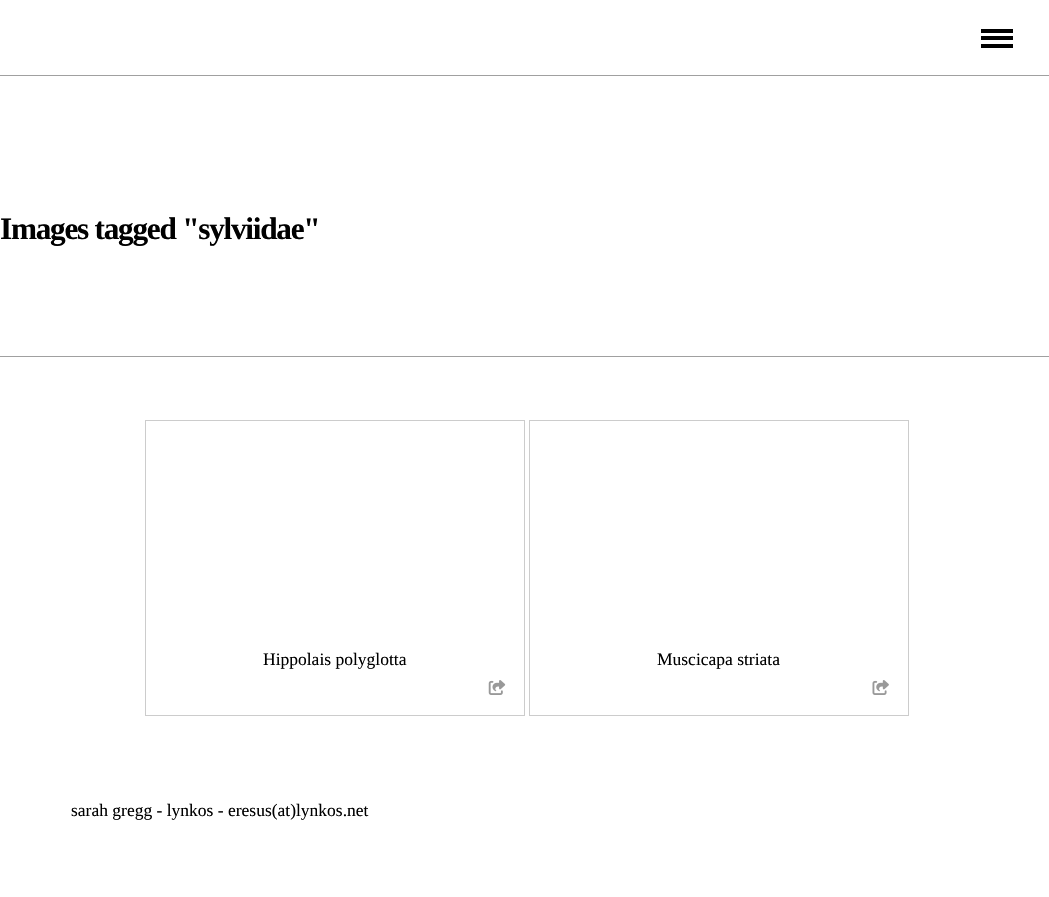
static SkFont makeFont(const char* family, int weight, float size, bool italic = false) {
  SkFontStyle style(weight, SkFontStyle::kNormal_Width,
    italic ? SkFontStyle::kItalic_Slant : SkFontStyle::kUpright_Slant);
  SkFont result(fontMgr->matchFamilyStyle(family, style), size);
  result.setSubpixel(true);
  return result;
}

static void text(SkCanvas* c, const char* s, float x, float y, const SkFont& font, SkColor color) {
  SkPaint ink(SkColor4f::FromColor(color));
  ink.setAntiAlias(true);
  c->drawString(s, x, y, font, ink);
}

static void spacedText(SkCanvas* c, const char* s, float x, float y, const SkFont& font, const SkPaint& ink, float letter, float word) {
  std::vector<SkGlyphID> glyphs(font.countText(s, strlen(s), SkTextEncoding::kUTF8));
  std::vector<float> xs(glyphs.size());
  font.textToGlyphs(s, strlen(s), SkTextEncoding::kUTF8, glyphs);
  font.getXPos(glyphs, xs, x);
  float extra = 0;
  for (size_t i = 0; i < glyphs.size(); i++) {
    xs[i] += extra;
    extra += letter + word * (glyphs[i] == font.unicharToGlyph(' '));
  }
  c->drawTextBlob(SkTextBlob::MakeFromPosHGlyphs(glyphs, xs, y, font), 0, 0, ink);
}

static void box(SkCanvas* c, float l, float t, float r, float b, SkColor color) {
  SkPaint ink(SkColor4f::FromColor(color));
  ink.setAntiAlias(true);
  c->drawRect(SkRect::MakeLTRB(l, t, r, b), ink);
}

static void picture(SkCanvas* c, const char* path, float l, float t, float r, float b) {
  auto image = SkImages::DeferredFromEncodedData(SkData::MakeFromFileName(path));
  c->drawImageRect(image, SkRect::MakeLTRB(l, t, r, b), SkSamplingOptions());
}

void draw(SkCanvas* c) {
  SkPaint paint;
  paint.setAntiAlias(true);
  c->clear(0xffffffff);
  box(c, 0, 75, 1049, 76, 0xffa0a0a0);
  box(c, 981, 29, 1013, 33, 0xff000000);
  box(c, 981, 36, 1013, 40, 0xff000000);
  box(c, 981, 44, 1013, 48, 0xff000000);
  box(c, 0, 356, 1049, 357, 0xffa0a0a0);
  SkFont face1 = makeFont("Liberation Serif", 700, 31.25f);
  paint.setColor(0xff000000);
  spacedText(c, "Images tagged \"sylviidae\"", 0, 239, face1, paint, -1.25f, 0);
  paint.setStyle(SkPaint::kStroke_Style);
  paint.setStrokeWidth(1);
  paint.setColor(0xffcccccc);
  c->drawRect(SkRect::MakeLTRB(145.5f, 420.5f, 524.5f, 715.5f), paint);
  SkFont face2 = makeFont("Liberation Serif", 400, 17.5f);
  text(c, "Hippolais polyglotta", 263, 665, face2, 0xff000000);
  picture(c, "img_01.png", 488, 680, 506, 695);
  c->drawRect(SkRect::MakeLTRB(529.5f, 420.5f, 908.5f, 715.5f), paint);
  text(c, "Muscicapa striata", 657, 665, face2, 0xff000000);
  picture(c, "img_02.png", 872, 680, 889, 695);
  text(c, "sarah gregg - lynkos - eresus(at)lynkos.net", 71, 816, face2, 0xff000000);
}
